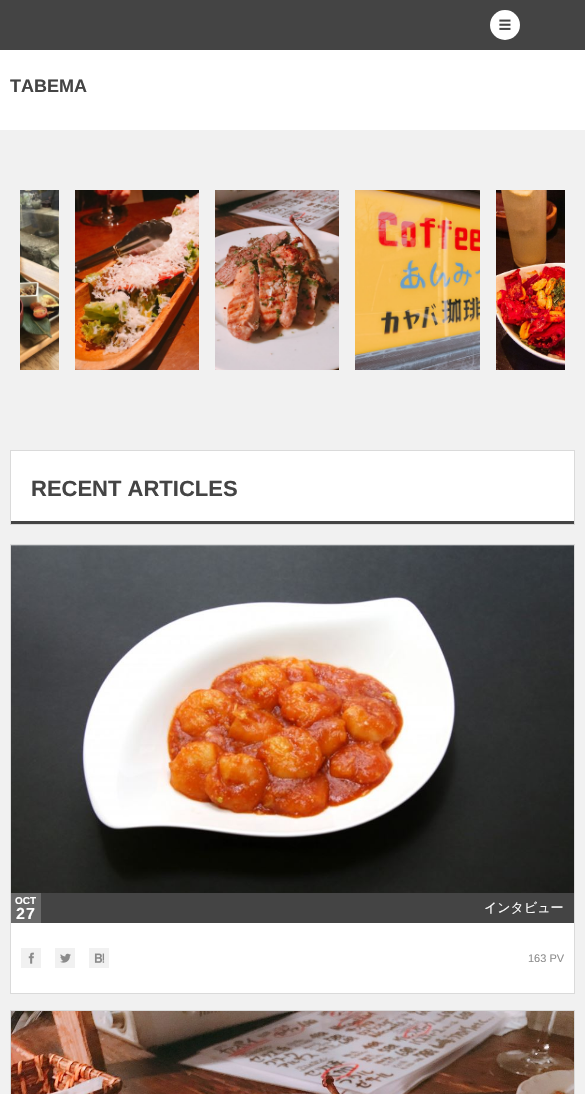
static SkFont makeFont(const char* family, int weight, float size, bool italic = false) {
  SkFontStyle style(weight, SkFontStyle::kNormal_Width,
    italic ? SkFontStyle::kItalic_Slant : SkFontStyle::kUpright_Slant);
  SkFont result(fontMgr->matchFamilyStyle(family, style), size);
  result.setSubpixel(true);
  return result;
}

static void text(SkCanvas* c, const char* s, float x, float y, const SkFont& font, SkColor color) {
  SkPaint ink(SkColor4f::FromColor(color));
  ink.setAntiAlias(true);
  c->drawString(s, x, y, font, ink);
}

static void spacedText(SkCanvas* c, const char* s, float x, float y, const SkFont& font, const SkPaint& ink, float letter, float word) {
  std::vector<SkGlyphID> glyphs(font.countText(s, strlen(s), SkTextEncoding::kUTF8));
  std::vector<float> xs(glyphs.size());
  font.textToGlyphs(s, strlen(s), SkTextEncoding::kUTF8, glyphs);
  font.getXPos(glyphs, xs, x);
  float extra = 0;
  for (size_t i = 0; i < glyphs.size(); i++) {
    xs[i] += extra;
    extra += letter + word * (glyphs[i] == font.unicharToGlyph(' '));
  }
  c->drawTextBlob(SkTextBlob::MakeFromPosHGlyphs(glyphs, xs, y, font), 0, 0, ink);
}

static void box(SkCanvas* c, float l, float t, float r, float b, SkColor color) {
  SkPaint ink(SkColor4f::FromColor(color));
  ink.setAntiAlias(true);
  c->drawRect(SkRect::MakeLTRB(l, t, r, b), ink);
}

static void picture(SkCanvas* c, const char* path, float l, float t, float r, float b) {
  auto image = SkImages::DeferredFromEncodedData(SkData::MakeFromFileName(path));
  c->drawImageRect(image, SkRect::MakeLTRB(l, t, r, b), SkSamplingOptions());
}

void draw(SkCanvas* c) {
  SkPaint paint;
  paint.setAntiAlias(true);
  c->clear(0xfff1f1f1);
  box(c, 0, 50, 585, 130, 0xffffffff);
  box(c, 0, 0, 585, 50, 0xff444444);
  paint.setColor(0xffffffff);
  c->drawCircle(505, 25, 15, paint);
  picture(c, "img_01.png", 499, 19, 511, 30);
  SkFont face1 = makeFont("Liberation Sans", 700, 18);
  text(c, "TABEMA", 10, 92, face1, 0xff444444);
  picture(c, "img_02.png", 20, 190, 59, 370);
  picture(c, "img_03.png", 75, 190, 199, 370);
  picture(c, "img_04.png", 215, 190, 339, 370);
  picture(c, "img_05.png", 355, 190, 480, 370);
  picture(c, "img_06.png", 496, 190, 565, 370);
  box(c, 11, 451, 574, 521, 0xffffffff);
  paint.setStyle(SkPaint::kStroke_Style);
  paint.setStrokeWidth(1);
  paint.setColor(0xffdadada);
  c->drawRect(SkRect::MakeLTRB(10.5f, 450.5f, 574.5f, 524.5f), paint);
  SkFont face2 = makeFont("Liberation Sans", 700, 22);
  text(c, "RECENT ARTICLES", 31, 496, face2, 0xff444444);
  box(c, 11, 521, 574, 524, 0xff444444);
  box(c, 11, 923, 574, 993, 0xffffffff);
  c->drawRect(SkRect::MakeLTRB(10.5f, 544.5f, 574.5f, 993.5f), paint);
  picture(c, "img_07.png", 11, 545, 574, 893);
  box(c, 11, 893, 41, 923, 0xff696969);
  SkFont face3 = makeFont("Liberation Sans", 700, 10);
  text(c, "OCT", 15, 904, face3, 0xffffffff);
  SkFont face4 = makeFont("Liberation Sans", 700, 16);
  paint.setStyle(SkPaint::kFill_Style);
  paint.setColor(0xffffffff);
  spacedText(c, "27", 16, 919, face4, paint, 1, 0);
  box(c, 41, 893, 574, 923, 0xff444444);
  SkFont face5 = makeFont("WenQuanYi Zen Hei", 500, 13);
  text(c, "インタビュー", 484, 912, face5, 0xffffffff);
  box(c, 21, 948, 41, 968, 0xfff1f1f1);
  picture(c, "img_08.png", 28, 952, 34, 964);
  box(c, 55, 948, 75, 968, 0xfff1f1f1);
  picture(c, "img_09.png", 60, 953, 71, 963);
  box(c, 89, 948, 109, 968, 0xfff1f1f1);
  picture(c, "img_10.png", 94, 953, 105, 963);
  SkFont face6 = makeFont("Liberation Sans", 400, 11);
  text(c, "163 PV", 528, 962, face6, 0xff8f8f8f);
  paint.setStyle(SkPaint::kStroke_Style);
  paint.setColor(0xffdadada);
  c->drawRect(SkRect::MakeLTRB(10.5f, 1010.5f, 574.5f, 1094.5f), paint);
  picture(c, "img_11.png", 11, 1011, 574, 1094);
}
